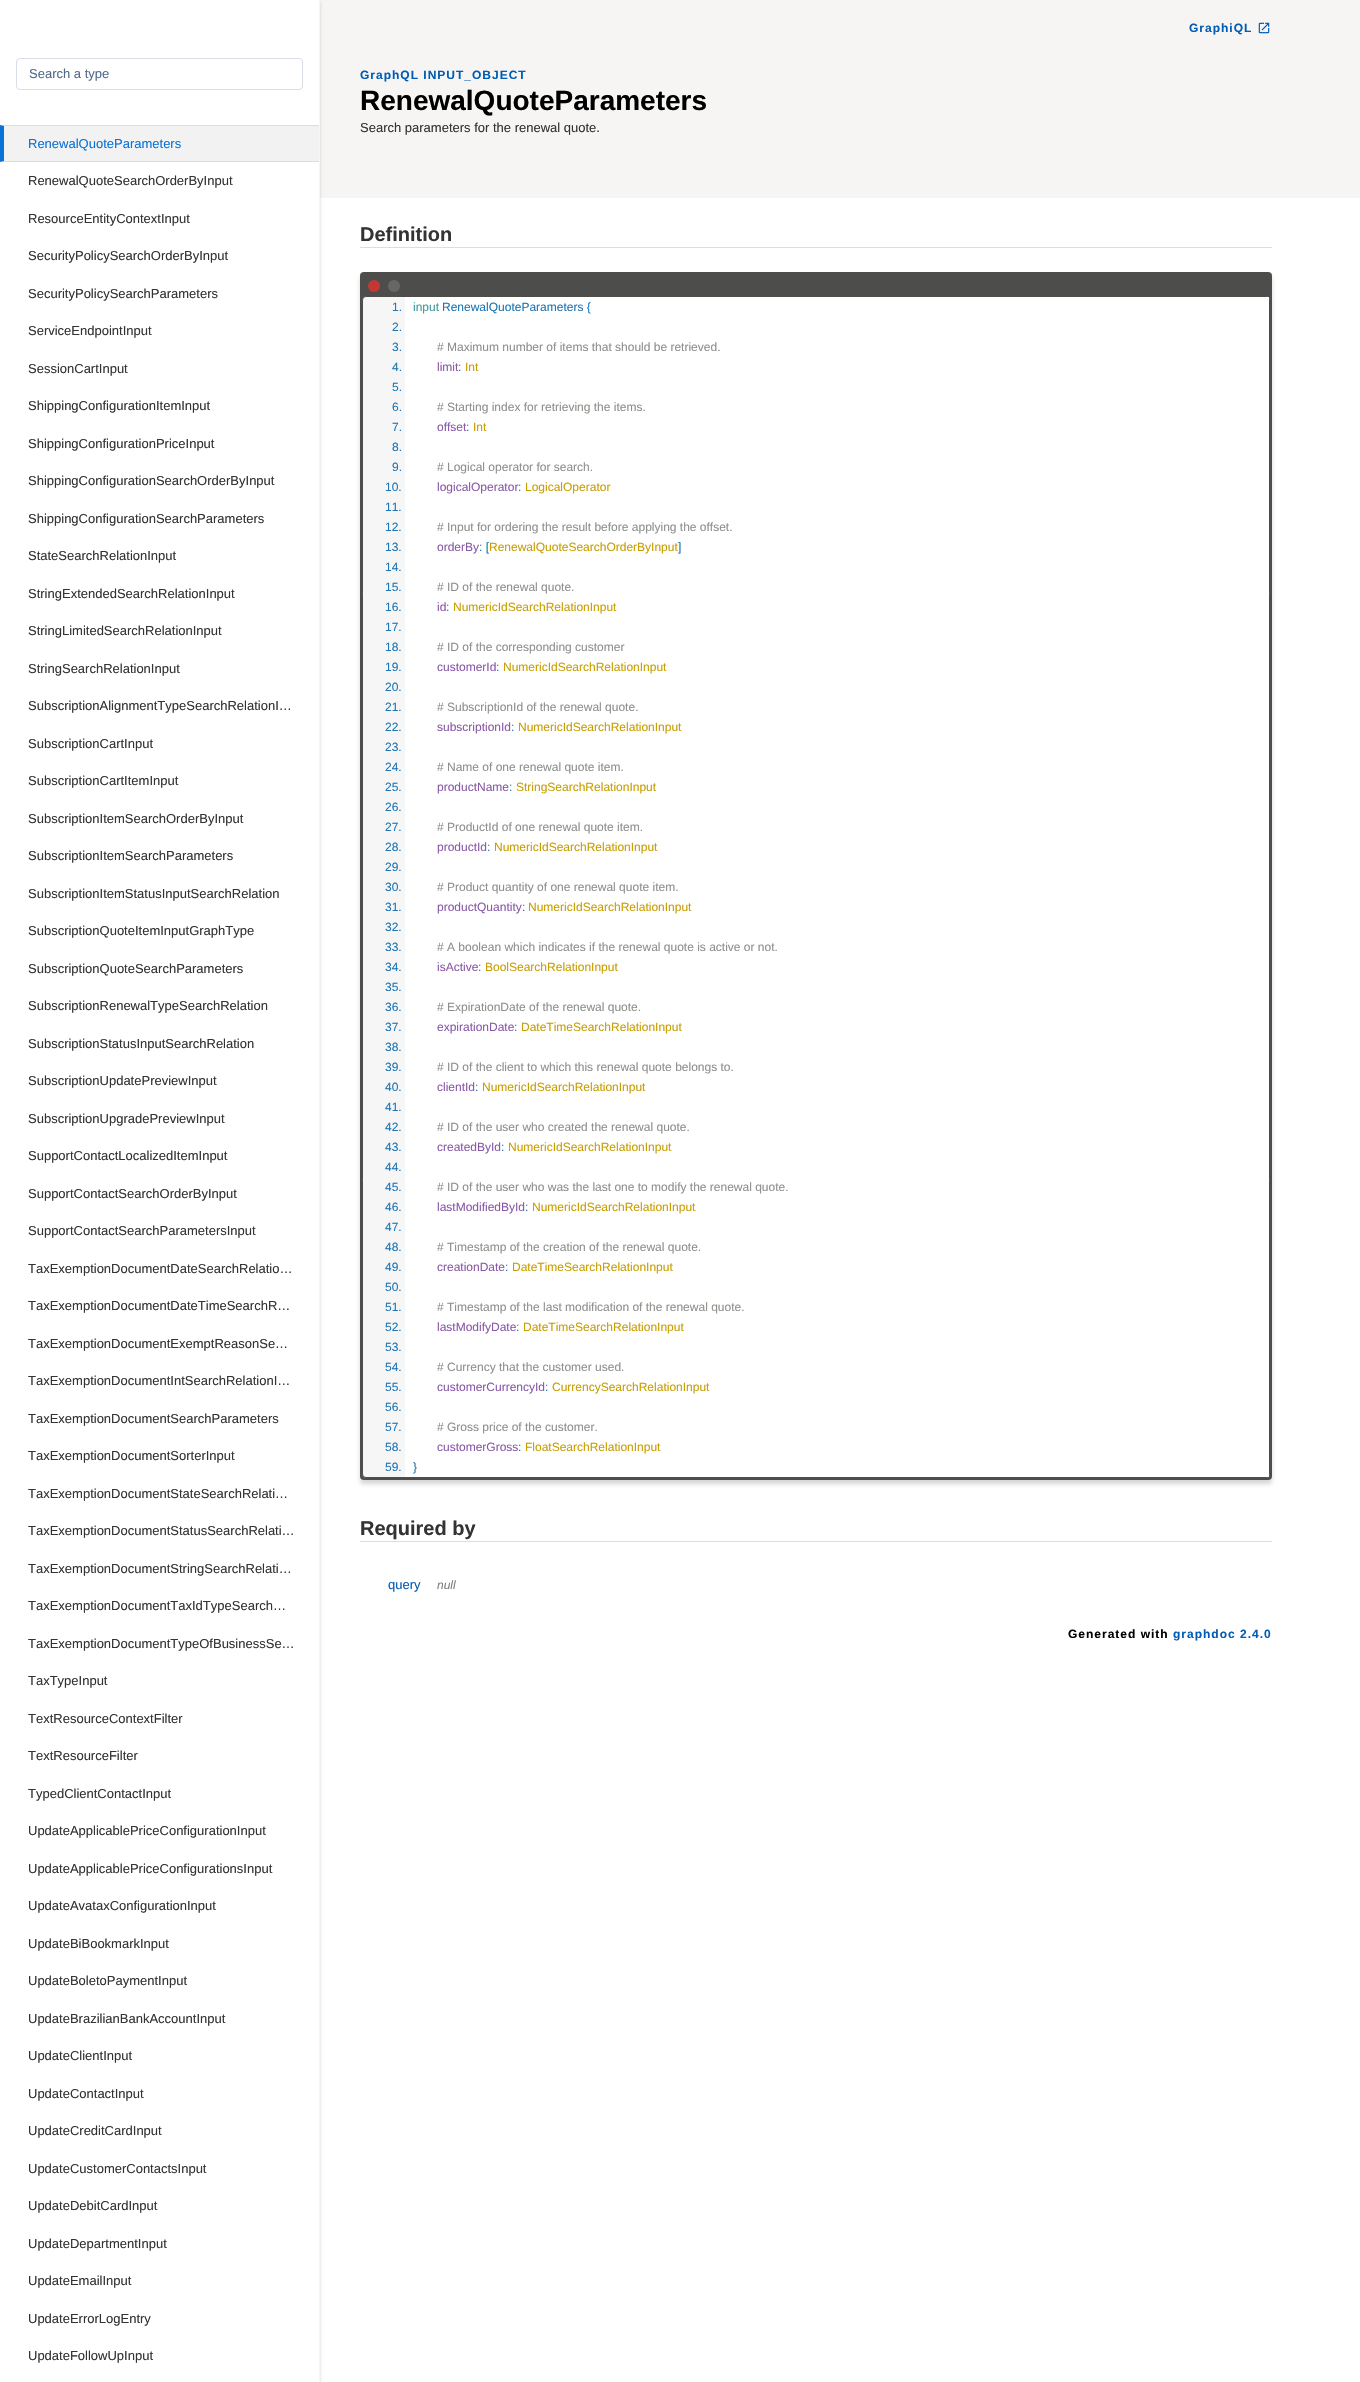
static SkFont makeFont(const char* family, int weight, float size, bool italic = false) {
  SkFontStyle style(weight, SkFontStyle::kNormal_Width,
    italic ? SkFontStyle::kItalic_Slant : SkFontStyle::kUpright_Slant);
  SkFont result(fontMgr->matchFamilyStyle(family, style), size);
  result.setSubpixel(true);
  return result;
}

static void text(SkCanvas* c, const char* s, float x, float y, const SkFont& font, SkColor color) {
  SkPaint ink(SkColor4f::FromColor(color));
  ink.setAntiAlias(true);
  c->drawString(s, x, y, font, ink);
}

static void spacedText(SkCanvas* c, const char* s, float x, float y, const SkFont& font, const SkPaint& ink, float letter, float word) {
  std::vector<SkGlyphID> glyphs(font.countText(s, strlen(s), SkTextEncoding::kUTF8));
  std::vector<float> xs(glyphs.size());
  font.textToGlyphs(s, strlen(s), SkTextEncoding::kUTF8, glyphs);
  font.getXPos(glyphs, xs, x);
  float extra = 0;
  for (size_t i = 0; i < glyphs.size(); i++) {
    xs[i] += extra;
    extra += letter + word * (glyphs[i] == font.unicharToGlyph(' '));
  }
  c->drawTextBlob(SkTextBlob::MakeFromPosHGlyphs(glyphs, xs, y, font), 0, 0, ink);
}

static void box(SkCanvas* c, float l, float t, float r, float b, SkColor color) {
  SkPaint ink(SkColor4f::FromColor(color));
  ink.setAntiAlias(true);
  c->drawRect(SkRect::MakeLTRB(l, t, r, b), ink);
}

static void roundBox(SkCanvas* c, float l, float t, float r, float b, float radius, SkColor color) {
  SkPaint ink(SkColor4f::FromColor(color));
  ink.setAntiAlias(true);
  c->drawRoundRect(SkRect::MakeLTRB(l, t, r, b), radius, radius, ink);
}

static void picture(SkCanvas* c, const char* path, float l, float t, float r, float b) {
  auto image = SkImages::DeferredFromEncodedData(SkData::MakeFromFileName(path));
  c->drawImageRect(image, SkRect::MakeLTRB(l, t, r, b), SkSamplingOptions());
}

void draw(SkCanvas* c) {
  SkPaint paint;
  paint.setAntiAlias(true);
  c->clear(0xffffffff);
  box(c, 320, 0, 1360, 198, 0xfff6f5f4);
  paint.setColor(0x29000000);
  paint.setMaskFilter(SkMaskFilter::MakeBlur(kNormal_SkBlurStyle, 1.5f));
  c->drawRect(SkRect::MakeLTRB(0, 2, 320, 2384), paint);
  paint.setMaskFilter(nullptr);
  box(c, 0, 0, 319, 2382, 0xffffffff);
  box(c, 319, 0, 320, 2382, 0xfff4f6f9);
  paint.setStyle(SkPaint::kStroke_Style);
  paint.setStrokeWidth(1);
  paint.setColor(0xffd8dde6);
  c->drawRoundRect(SkRect::MakeLTRB(16.5f, 58.5f, 302.5f, 89.5f), 3.5f, 3.5f, paint);
  SkFont face1 = makeFont("Liberation Sans", 400, 13);
  text(c, "Search a type", 29, 78, face1, 0xff54698d);
  box(c, 0, 125, 319, 162, 0xfff2f2f2);
  paint.setStyle(SkPaint::kFill_Style);
  c->drawPath(SkPathBuilder().moveTo(0, 125).lineTo(319, 125).lineTo(319, 126).lineTo(4, 126).close().detach(), paint);
  c->drawPath(SkPathBuilder().moveTo(319, 162).lineTo(0, 162).lineTo(4, 161).lineTo(319, 161).close().detach(), paint);
  paint.setColor(0xff0a73d7);
  c->drawPath(SkPathBuilder().moveTo(0, 162).lineTo(0, 125).lineTo(4, 126).lineTo(4, 161).close().detach(), paint);
  text(c, "RenewalQuoteParameters", 28, 148, face1, 0xff0a73d7);
  text(c, "RenewalQuoteSearchOrderByInput", 28, 185, face1, 0xff333333);
  text(c, "ResourceEntityContextInput", 28, 223, face1, 0xff333333);
  text(c, "SecurityPolicySearchOrderByInput", 28, 260, face1, 0xff333333);
  text(c, "SecurityPolicySearchParameters", 28, 298, face1, 0xff333333);
  text(c, "ServiceEndpointInput", 28, 335, face1, 0xff333333);
  text(c, "SessionCartInput", 28, 373, face1, 0xff333333);
  text(c, "ShippingConfigurationItemInput", 28, 410, face1, 0xff333333);
  text(c, "ShippingConfigurationPriceInput", 28, 448, face1, 0xff333333);
  text(c, "ShippingConfigurationSearchOrderByInput", 28, 485, face1, 0xff333333);
  text(c, "ShippingConfigurationSearchParameters", 28, 523, face1, 0xff333333);
  text(c, "StateSearchRelationInput", 28, 560, face1, 0xff333333);
  text(c, "StringExtendedSearchRelationInput", 28, 598, face1, 0xff333333);
  text(c, "StringLimitedSearchRelationInput", 28, 635, face1, 0xff333333);
  text(c, "StringSearchRelationInput", 28, 673, face1, 0xff333333);
  text(c, "SubscriptionAlignmentTypeSearchRelationI…", 28, 710, face1, 0xff333333);
  text(c, "SubscriptionCartInput", 28, 748, face1, 0xff333333);
  text(c, "SubscriptionCartItemInput", 28, 785, face1, 0xff333333);
  text(c, "SubscriptionItemSearchOrderByInput", 28, 823, face1, 0xff333333);
  text(c, "SubscriptionItemSearchParameters", 28, 860, face1, 0xff333333);
  text(c, "SubscriptionItemStatusInputSearchRelation", 28, 898, face1, 0xff333333);
  text(c, "SubscriptionQuoteItemInputGraphType", 28, 935, face1, 0xff333333);
  text(c, "SubscriptionQuoteSearchParameters", 28, 973, face1, 0xff333333);
  text(c, "SubscriptionRenewalTypeSearchRelation", 28, 1010, face1, 0xff333333);
  text(c, "SubscriptionStatusInputSearchRelation", 28, 1048, face1, 0xff333333);
  text(c, "SubscriptionUpdatePreviewInput", 28, 1085, face1, 0xff333333);
  text(c, "SubscriptionUpgradePreviewInput", 28, 1123, face1, 0xff333333);
  text(c, "SupportContactLocalizedItemInput", 28, 1160, face1, 0xff333333);
  text(c, "SupportContactSearchOrderByInput", 28, 1198, face1, 0xff333333);
  text(c, "SupportContactSearchParametersInput", 28, 1235, face1, 0xff333333);
  text(c, "TaxExemptionDocumentDateSearchRelatio…", 28, 1273, face1, 0xff333333);
  text(c, "TaxExemptionDocumentDateTimeSearchR…", 28, 1310, face1, 0xff333333);
  text(c, "TaxExemptionDocumentExemptReasonSe…", 28, 1348, face1, 0xff333333);
  text(c, "TaxExemptionDocumentIntSearchRelationI…", 28, 1385, face1, 0xff333333);
  text(c, "TaxExemptionDocumentSearchParameters", 28, 1423, face1, 0xff333333);
  text(c, "TaxExemptionDocumentSorterInput", 28, 1460, face1, 0xff333333);
  text(c, "TaxExemptionDocumentStateSearchRelati…", 28, 1498, face1, 0xff333333);
  text(c, "TaxExemptionDocumentStatusSearchRelati…", 28, 1535, face1, 0xff333333);
  text(c, "TaxExemptionDocumentStringSearchRelati…", 28, 1573, face1, 0xff333333);
  text(c, "TaxExemptionDocumentTaxIdTypeSearch…", 28, 1610, face1, 0xff333333);
  text(c, "TaxExemptionDocumentTypeOfBusinessSe…", 28, 1648, face1, 0xff333333);
  text(c, "TaxTypeInput", 28, 1685, face1, 0xff333333);
  text(c, "TextResourceContextFilter", 28, 1723, face1, 0xff333333);
  text(c, "TextResourceFilter", 28, 1760, face1, 0xff333333);
  text(c, "TypedClientContactInput", 28, 1798, face1, 0xff333333);
  text(c, "UpdateApplicablePriceConfigurationInput", 28, 1835, face1, 0xff333333);
  text(c, "UpdateApplicablePriceConfigurationsInput", 28, 1873, face1, 0xff333333);
  text(c, "UpdateAvataxConfigurationInput", 28, 1910, face1, 0xff333333);
  text(c, "UpdateBiBookmarkInput", 28, 1948, face1, 0xff333333);
  text(c, "UpdateBoletoPaymentInput", 28, 1985, face1, 0xff333333);
  text(c, "UpdateBrazilianBankAccountInput", 28, 2023, face1, 0xff333333);
  text(c, "UpdateClientInput", 28, 2060, face1, 0xff333333);
  text(c, "UpdateContactInput", 28, 2098, face1, 0xff333333);
  text(c, "UpdateCreditCardInput", 28, 2135, face1, 0xff333333);
  text(c, "UpdateCustomerContactsInput", 28, 2173, face1, 0xff333333);
  text(c, "UpdateDebitCardInput", 28, 2210, face1, 0xff333333);
  text(c, "UpdateDepartmentInput", 28, 2248, face1, 0xff333333);
  text(c, "UpdateEmailInput", 28, 2285, face1, 0xff333333);
  text(c, "UpdateErrorLogEntry", 28, 2323, face1, 0xff333333);
  text(c, "UpdateFollowUpInput", 28, 2360, face1, 0xff333333);
  SkFont face2 = makeFont("Liberation Sans", 700, 12);
  paint.setColor(0xff005cb4);
  spacedText(c, "GraphiQL", 1189, 32, face2, paint, 1, 0);
  picture(c, "img_01.png", 1258, 22, 1270, 34);
  spacedText(c, "GraphQL INPUT_OBJECT", 360, 79, face2, paint, 1, 0);
  SkFont face3 = makeFont("Liberation Sans", 700, 28);
  text(c, "RenewalQuoteParameters", 360, 110, face3, 0xff000000);
  text(c, "Search parameters for the renewal quote.", 360, 132, face1, 0xff333333);
  box(c, 360, 247, 1272, 248, 0xffd8dde6);
  SkFont face4 = makeFont("Liberation Sans", 700, 20);
  text(c, "Definition", 360, 241, face4, 0xff333333);
  paint.setColor(0x29000000);
  paint.setMaskFilter(SkMaskFilter::MakeBlur(kNormal_SkBlurStyle, 2));
  c->drawRoundRect(SkRect::MakeLTRB(360, 276, 1272, 1484), 4, 4, paint);
  paint.setMaskFilter(nullptr);
  roundBox(c, 360, 272, 1272, 1480, 4, 0xff4d4d4c);
  paint.setColor(0xffc23934);
  c->drawCircle(374, 286, 6, paint);
  paint.setColor(0xff676765);
  c->drawCircle(394, 286, 6, paint);
  paint.setColor(0xfff6f6f6);
  c->drawRoundRect(SkRect::MakeLTRB(362.5f, 296.5f, 1269.5f, 1477.5f), 3.5f, 3.5f, paint);
  paint.setStyle(SkPaint::kStroke_Style);
  paint.setColor(0xff4d4d4c);
  c->drawRoundRect(SkRect::MakeLTRB(362.5f, 296.5f, 1269.5f, 1477.5f), 3.5f, 3.5f, paint);
  box(c, 405, 297, 1269, 1477, 0xffffffff);
  SkFont face5 = makeFont("Liberation Sans", 400, 12);
  text(c, "1.", 392, 311, face5, 0xff1d75b3);
  text(c, "input", 413, 311, face5, 0xff3e999f);
  text(c, "RenewalQuoteParameters {", 442, 311, face5, 0xff1d75b3);
  text(c, "2.", 392, 331, face5, 0xff1d75b3);
  text(c, "3.", 392, 351, face5, 0xff1d75b3);
  text(c, "# Maximum number of items that should be retrieved.", 437, 351, face5, 0xff8e908c);
  text(c, "4.", 392, 371, face5, 0xff1d75b3);
  text(c, "limit", 437, 371, face5, 0xff8959a8);
  text(c, ":", 458, 371, face5, 0xff1d75b3);
  text(c, "Int", 465, 371, face5, 0xffc99e00);
  text(c, "5.", 392, 391, face5, 0xff1d75b3);
  text(c, "6.", 392, 411, face5, 0xff1d75b3);
  text(c, "# Starting index for retrieving the items.", 437, 411, face5, 0xff8e908c);
  text(c, "7.", 392, 431, face5, 0xff1d75b3);
  text(c, "offset", 437, 431, face5, 0xff8959a8);
  text(c, ":", 466, 431, face5, 0xff1d75b3);
  text(c, "Int", 473, 431, face5, 0xffc99e00);
  text(c, "8.", 392, 451, face5, 0xff1d75b3);
  text(c, "9.", 392, 471, face5, 0xff1d75b3);
  text(c, "# Logical operator for search.", 437, 471, face5, 0xff8e908c);
  text(c, "10.", 385, 491, face5, 0xff1d75b3);
  text(c, "logicalOperator", 437, 491, face5, 0xff8959a8);
  text(c, ":", 518, 491, face5, 0xff1d75b3);
  text(c, "LogicalOperator", 525, 491, face5, 0xffc99e00);
  text(c, "11.", 385, 511, face5, 0xff1d75b3);
  text(c, "12.", 385, 531, face5, 0xff1d75b3);
  text(c, "# Input for ordering the result before applying the offset.", 437, 531, face5, 0xff8e908c);
  text(c, "13.", 385, 551, face5, 0xff1d75b3);
  text(c, "orderBy", 437, 551, face5, 0xff8959a8);
  text(c, ": [", 479, 551, face5, 0xff1d75b3);
  text(c, "RenewalQuoteSearchOrderByInput", 489, 551, face5, 0xffc99e00);
  text(c, "]", 678, 551, face5, 0xff1d75b3);
  text(c, "14.", 385, 571, face5, 0xff1d75b3);
  text(c, "15.", 385, 591, face5, 0xff1d75b3);
  text(c, "# ID of the renewal quote.", 437, 591, face5, 0xff8e908c);
  text(c, "16.", 385, 611, face5, 0xff1d75b3);
  text(c, "id", 437, 611, face5, 0xff8959a8);
  text(c, ":", 446, 611, face5, 0xff1d75b3);
  text(c, "NumericIdSearchRelationInput", 453, 611, face5, 0xffc99e00);
  text(c, "17.", 385, 631, face5, 0xff1d75b3);
  text(c, "18.", 385, 651, face5, 0xff1d75b3);
  text(c, "# ID of the corresponding customer", 437, 651, face5, 0xff8e908c);
  text(c, "19.", 385, 671, face5, 0xff1d75b3);
  text(c, "customerId", 437, 671, face5, 0xff8959a8);
  text(c, ":", 496, 671, face5, 0xff1d75b3);
  text(c, "NumericIdSearchRelationInput", 503, 671, face5, 0xffc99e00);
  text(c, "20.", 385, 691, face5, 0xff1d75b3);
  text(c, "21.", 385, 711, face5, 0xff1d75b3);
  text(c, "# SubscriptionId of the renewal quote.", 437, 711, face5, 0xff8e908c);
  text(c, "22.", 385, 731, face5, 0xff1d75b3);
  text(c, "subscriptionId", 437, 731, face5, 0xff8959a8);
  text(c, ":", 511, 731, face5, 0xff1d75b3);
  text(c, "NumericIdSearchRelationInput", 518, 731, face5, 0xffc99e00);
  text(c, "23.", 385, 751, face5, 0xff1d75b3);
  text(c, "24.", 385, 771, face5, 0xff1d75b3);
  text(c, "# Name of one renewal quote item.", 437, 771, face5, 0xff8e908c);
  text(c, "25.", 385, 791, face5, 0xff1d75b3);
  text(c, "productName", 437, 791, face5, 0xff8959a8);
  text(c, ":", 509, 791, face5, 0xff1d75b3);
  text(c, "StringSearchRelationInput", 516, 791, face5, 0xffc99e00);
  text(c, "26.", 385, 811, face5, 0xff1d75b3);
  text(c, "27.", 385, 831, face5, 0xff1d75b3);
  text(c, "# ProductId of one renewal quote item.", 437, 831, face5, 0xff8e908c);
  text(c, "28.", 385, 851, face5, 0xff1d75b3);
  text(c, "productId", 437, 851, face5, 0xff8959a8);
  text(c, ":", 487, 851, face5, 0xff1d75b3);
  text(c, "NumericIdSearchRelationInput", 494, 851, face5, 0xffc99e00);
  text(c, "29.", 385, 871, face5, 0xff1d75b3);
  text(c, "30.", 385, 891, face5, 0xff1d75b3);
  text(c, "# Product quantity of one renewal quote item.", 437, 891, face5, 0xff8e908c);
  text(c, "31.", 385, 911, face5, 0xff1d75b3);
  text(c, "productQuantity", 437, 911, face5, 0xff8959a8);
  text(c, ":", 522, 911, face5, 0xff1d75b3);
  text(c, "NumericIdSearchRelationInput", 528, 911, face5, 0xffc99e00);
  text(c, "32.", 385, 931, face5, 0xff1d75b3);
  text(c, "33.", 385, 951, face5, 0xff1d75b3);
  text(c, "# A boolean which indicates if the renewal quote is active or not.", 437, 951, face5, 0xff8e908c);
  text(c, "34.", 385, 971, face5, 0xff1d75b3);
  text(c, "isActive", 437, 971, face5, 0xff8959a8);
  text(c, ":", 478, 971, face5, 0xff1d75b3);
  text(c, "BoolSearchRelationInput", 485, 971, face5, 0xffc99e00);
  text(c, "35.", 385, 991, face5, 0xff1d75b3);
  text(c, "36.", 385, 1011, face5, 0xff1d75b3);
  text(c, "# ExpirationDate of the renewal quote.", 437, 1011, face5, 0xff8e908c);
  text(c, "37.", 385, 1031, face5, 0xff1d75b3);
  text(c, "expirationDate", 437, 1031, face5, 0xff8959a8);
  text(c, ":", 514, 1031, face5, 0xff1d75b3);
  text(c, "DateTimeSearchRelationInput", 521, 1031, face5, 0xffc99e00);
  text(c, "38.", 385, 1051, face5, 0xff1d75b3);
  text(c, "39.", 385, 1071, face5, 0xff1d75b3);
  text(c, "# ID of the client to which this renewal quote belongs to.", 437, 1071, face5, 0xff8e908c);
  text(c, "40.", 385, 1091, face5, 0xff1d75b3);
  text(c, "clientId", 437, 1091, face5, 0xff8959a8);
  text(c, ":", 475, 1091, face5, 0xff1d75b3);
  text(c, "NumericIdSearchRelationInput", 482, 1091, face5, 0xffc99e00);
  text(c, "41.", 385, 1111, face5, 0xff1d75b3);
  text(c, "42.", 385, 1131, face5, 0xff1d75b3);
  text(c, "# ID of the user who created the renewal quote.", 437, 1131, face5, 0xff8e908c);
  text(c, "43.", 385, 1151, face5, 0xff1d75b3);
  text(c, "createdById", 437, 1151, face5, 0xff8959a8);
  text(c, ":", 501, 1151, face5, 0xff1d75b3);
  text(c, "NumericIdSearchRelationInput", 508, 1151, face5, 0xffc99e00);
  text(c, "44.", 385, 1171, face5, 0xff1d75b3);
  text(c, "45.", 385, 1191, face5, 0xff1d75b3);
  text(c, "# ID of the user who was the last one to modify the renewal quote.", 437, 1191, face5, 0xff8e908c);
  text(c, "46.", 385, 1211, face5, 0xff1d75b3);
  text(c, "lastModifiedById", 437, 1211, face5, 0xff8959a8);
  text(c, ":", 525, 1211, face5, 0xff1d75b3);
  text(c, "NumericIdSearchRelationInput", 532, 1211, face5, 0xffc99e00);
  text(c, "47.", 385, 1231, face5, 0xff1d75b3);
  text(c, "48.", 385, 1251, face5, 0xff1d75b3);
  text(c, "# Timestamp of the creation of the renewal quote.", 437, 1251, face5, 0xff8e908c);
  text(c, "49.", 385, 1271, face5, 0xff1d75b3);
  text(c, "creationDate", 437, 1271, face5, 0xff8959a8);
  text(c, ":", 505, 1271, face5, 0xff1d75b3);
  text(c, "DateTimeSearchRelationInput", 512, 1271, face5, 0xffc99e00);
  text(c, "50.", 385, 1291, face5, 0xff1d75b3);
  text(c, "51.", 385, 1311, face5, 0xff1d75b3);
  text(c, "# Timestamp of the last modification of the renewal quote.", 437, 1311, face5, 0xff8e908c);
  text(c, "52.", 385, 1331, face5, 0xff1d75b3);
  text(c, "lastModifyDate", 437, 1331, face5, 0xff8959a8);
  text(c, ":", 516, 1331, face5, 0xff1d75b3);
  text(c, "DateTimeSearchRelationInput", 523, 1331, face5, 0xffc99e00);
  text(c, "53.", 385, 1351, face5, 0xff1d75b3);
  text(c, "54.", 385, 1371, face5, 0xff1d75b3);
  text(c, "# Currency that the customer used.", 437, 1371, face5, 0xff8e908c);
  text(c, "55.", 385, 1391, face5, 0xff1d75b3);
  text(c, "customerCurrencyId", 437, 1391, face5, 0xff8959a8);
  text(c, ":", 545, 1391, face5, 0xff1d75b3);
  text(c, "CurrencySearchRelationInput", 552, 1391, face5, 0xffc99e00);
  text(c, "56.", 385, 1411, face5, 0xff1d75b3);
  text(c, "57.", 385, 1431, face5, 0xff1d75b3);
  text(c, "# Gross price of the customer.", 437, 1431, face5, 0xff8e908c);
  text(c, "58.", 385, 1451, face5, 0xff1d75b3);
  text(c, "customerGross", 437, 1451, face5, 0xff8959a8);
  text(c, ":", 518, 1451, face5, 0xff1d75b3);
  text(c, "FloatSearchRelationInput", 525, 1451, face5, 0xffc99e00);
  text(c, "59.", 385, 1471, face5, 0xff1d75b3);
  text(c, "}", 413, 1471, face5, 0xff1d75b3);
  box(c, 360, 1541, 1272, 1542, 0xffd8dde6);
  text(c, "Required by", 360, 1535, face4, 0xff333333);
  text(c, "query", 388, 1589, face1, 0xff005cb4);
  SkFont face6 = makeFont("Liberation Sans", 400, 12, true);
  text(c, "null", 437, 1589, face6, 0xff808080);
  paint.setStyle(SkPaint::kFill_Style);
  paint.setColor(0xff000000);
  spacedText(c, "Generated with", 1068, 1638, face2, paint, 1, 0);
  paint.setColor(0xff005cb4);
  spacedText(c, "graphdoc 2.4.0", 1173, 1638, face2, paint, 1, 0);
}
